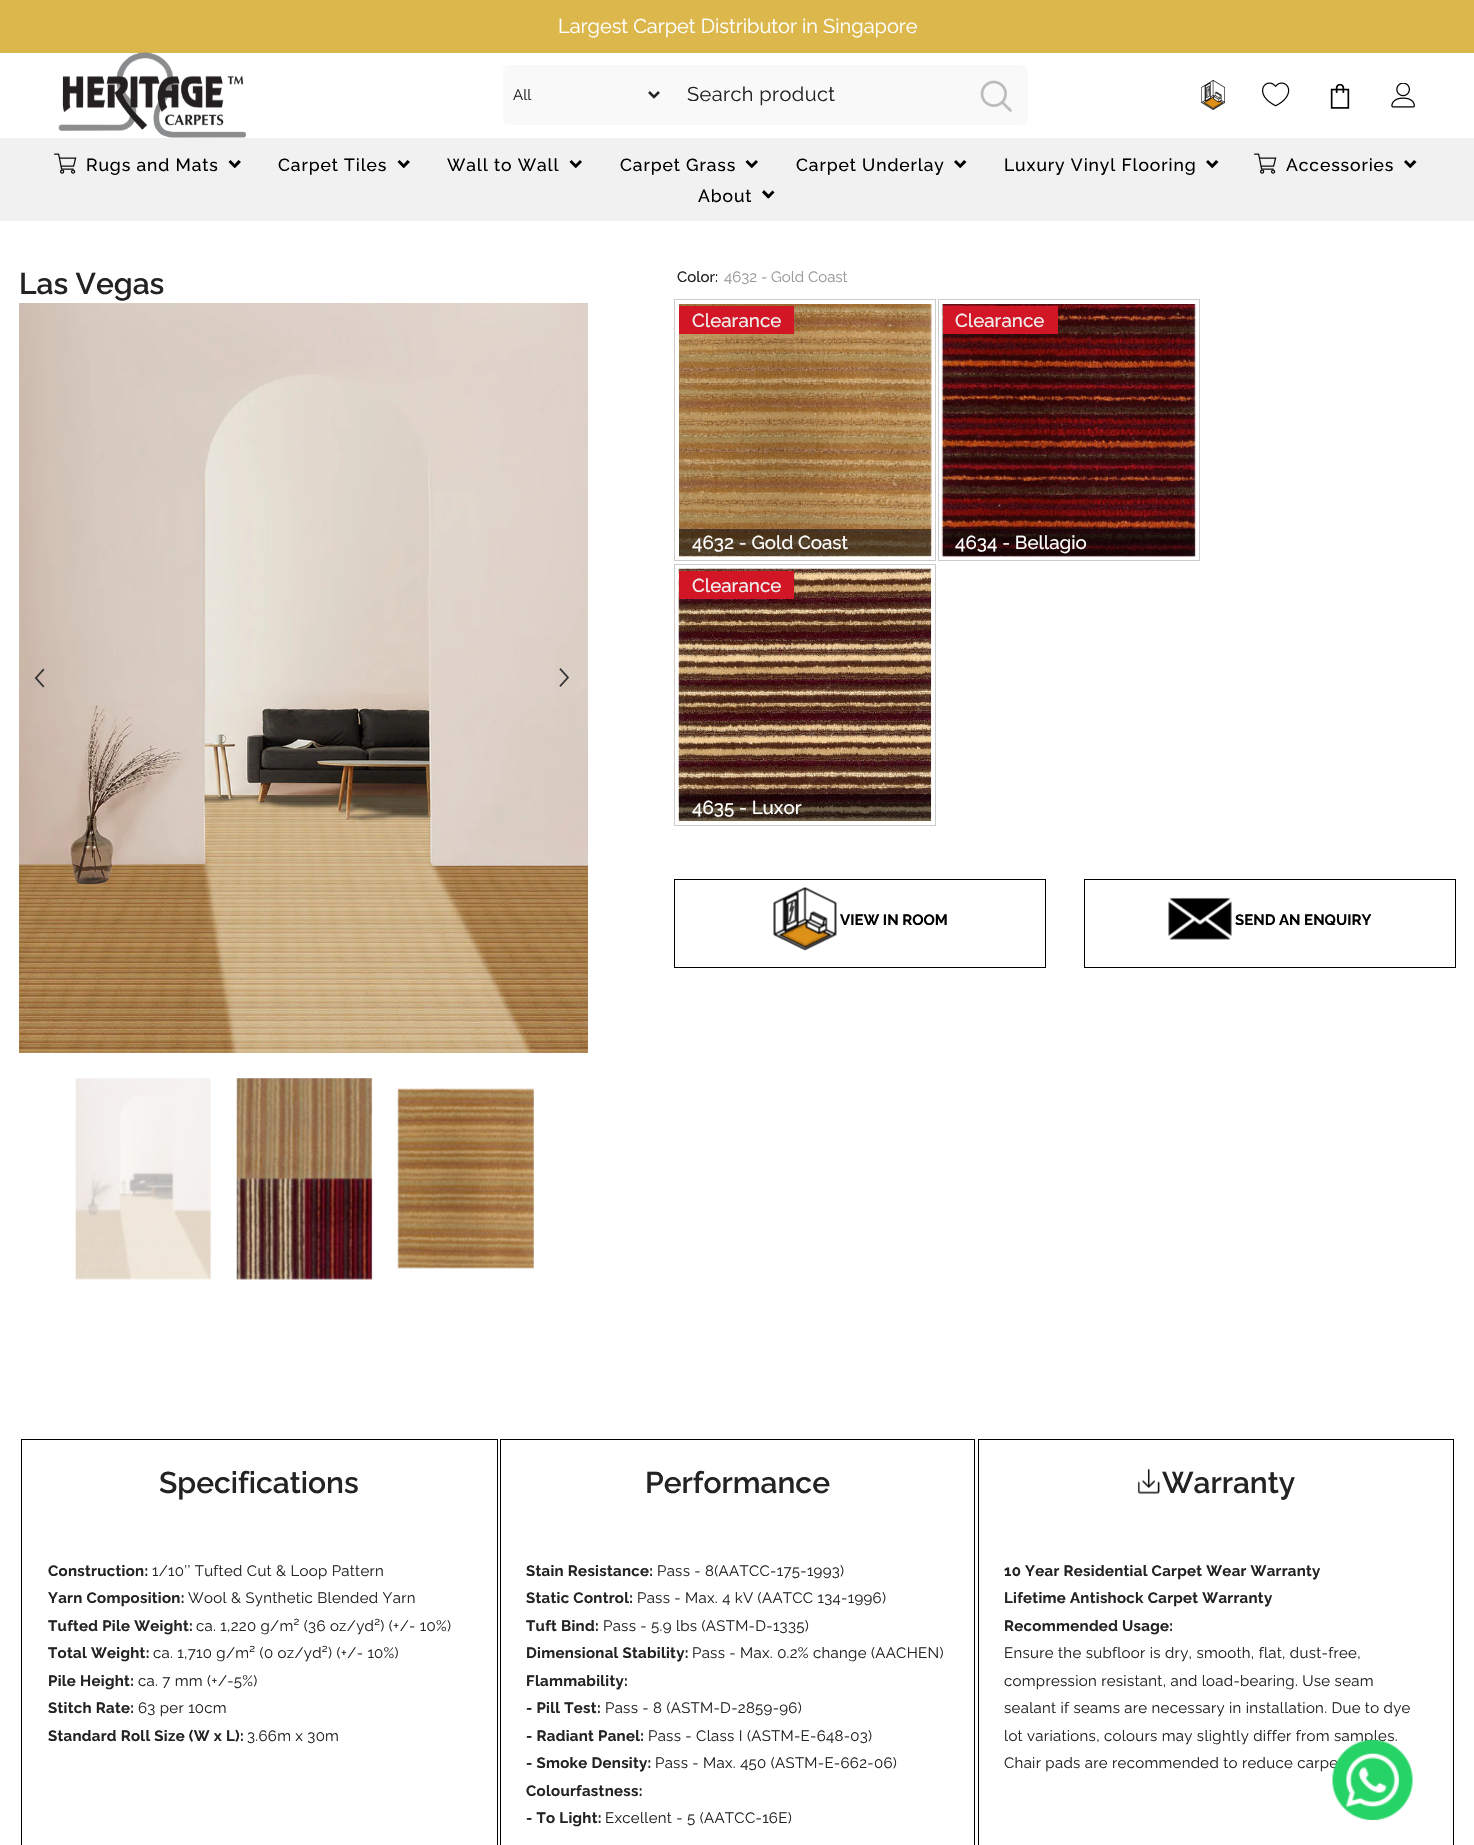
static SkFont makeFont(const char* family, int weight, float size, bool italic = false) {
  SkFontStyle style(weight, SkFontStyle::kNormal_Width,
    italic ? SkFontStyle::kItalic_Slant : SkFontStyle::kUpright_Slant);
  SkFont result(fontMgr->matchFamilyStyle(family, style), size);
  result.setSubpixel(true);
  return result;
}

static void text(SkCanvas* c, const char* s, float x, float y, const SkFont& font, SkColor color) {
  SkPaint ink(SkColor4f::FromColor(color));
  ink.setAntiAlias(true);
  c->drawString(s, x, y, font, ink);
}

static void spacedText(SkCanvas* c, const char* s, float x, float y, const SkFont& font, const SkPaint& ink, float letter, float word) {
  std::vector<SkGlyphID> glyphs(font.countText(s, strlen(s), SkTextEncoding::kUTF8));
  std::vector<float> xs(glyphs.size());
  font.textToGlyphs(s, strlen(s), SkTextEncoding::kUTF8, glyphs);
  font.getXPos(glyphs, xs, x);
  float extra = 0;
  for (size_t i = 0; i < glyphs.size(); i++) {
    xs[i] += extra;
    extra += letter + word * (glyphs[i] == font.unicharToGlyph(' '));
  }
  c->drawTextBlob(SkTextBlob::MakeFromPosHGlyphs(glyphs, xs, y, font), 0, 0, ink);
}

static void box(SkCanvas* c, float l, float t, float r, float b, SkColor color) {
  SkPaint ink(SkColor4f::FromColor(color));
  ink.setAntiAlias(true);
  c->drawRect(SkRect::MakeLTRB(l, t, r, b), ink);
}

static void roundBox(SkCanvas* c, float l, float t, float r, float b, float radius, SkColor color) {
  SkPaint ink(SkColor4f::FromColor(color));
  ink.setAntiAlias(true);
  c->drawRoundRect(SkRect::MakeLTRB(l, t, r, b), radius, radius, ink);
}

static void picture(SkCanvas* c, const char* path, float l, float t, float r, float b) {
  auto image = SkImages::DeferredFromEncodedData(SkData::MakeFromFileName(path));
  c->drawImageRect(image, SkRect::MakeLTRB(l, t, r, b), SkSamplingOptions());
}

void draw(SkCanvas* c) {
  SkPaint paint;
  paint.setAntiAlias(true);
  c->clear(0xffffffff);
  box(c, 0, 0, 1474, 53, 0xffdcb84c);
  SkFont face1 = makeFont("Raleway", 100, 20);
  text(c, "Largest Carpet Distributor in Singapore", 558, 33, face1, 0xffffffff);
  picture(c, "img_01.png", 58, 52, 247, 138);
  roundBox(c, 503, 65, 1028, 125, 6, 0xfff9f9f9);
  paint.setStyle(SkPaint::kStroke_Style);
  paint.setStrokeWidth(2.5f);
  paint.setColor(0xff232323);
  c->drawPath(SkPathBuilder().moveTo(649, 92).lineTo(654, 97).lineTo(659, 92).detach(), paint);
  SkFont face2 = makeFont("Raleway", 100, 15);
  text(c, "All", 513, 100, face2, 0xff232323);
  paint.setStyle(SkPaint::kFill_Style);
  spacedText(c, "Search product", 687, 101, face1, paint, 0.4f, 0);
  picture(c, "img_02.png", 980, 80, 1012, 112);
  picture(c, "img_03.png", 1201, 80, 1225, 110);
  picture(c, "img_04.png", 1262, 82, 1290, 107);
  picture(c, "img_05.png", 1330, 84, 1350, 109);
  picture(c, "img_06.png", 1391, 83, 1415, 108);
  box(c, 0, 138, 1474, 221, 0xfff1f1f1);
  picture(c, "img_07.png", 54, 153, 77, 174);
  SkFont face3 = makeFont("Raleway", 500, 17.5f);
  paint.setColor(0xff000000);
  spacedText(c, "Rugs and Mats", 86, 171, face3, paint, 0.9f, 0);
  c->drawPath(SkPathBuilder().moveTo(238.5f, 160).lineTo(241, 162).lineTo(235, 168).lineTo(233, 166).close().detach(), paint);
  c->drawPath(SkPathBuilder().moveTo(230.5f, 160).lineTo(236.5f, 166).lineTo(234.5f, 168).lineTo(228.5f, 162).close().detach(), paint);
  spacedText(c, "Carpet Tiles", 278, 171, face3, paint, 0.9f, 0);
  c->drawPath(SkPathBuilder().moveTo(407.5f, 160).lineTo(410, 162).lineTo(404, 168).lineTo(402, 166).close().detach(), paint);
  c->drawPath(SkPathBuilder().moveTo(399.5f, 160).lineTo(405.5f, 166).lineTo(403.5f, 168).lineTo(397.5f, 162).close().detach(), paint);
  spacedText(c, "Wall to Wall", 447, 171, face3, paint, 0.9f, 0);
  c->drawPath(SkPathBuilder().moveTo(580, 160).lineTo(582, 162).lineTo(576, 168).lineTo(574, 166).close().detach(), paint);
  c->drawPath(SkPathBuilder().moveTo(571.5f, 160).lineTo(577.5f, 166).lineTo(575.5f, 168).lineTo(569.5f, 162).close().detach(), paint);
  spacedText(c, "Carpet Grass", 620, 171, face3, paint, 0.9f, 0);
  c->drawPath(SkPathBuilder().moveTo(756, 160).lineTo(758, 162).lineTo(752, 168).lineTo(750, 166).close().detach(), paint);
  c->drawPath(SkPathBuilder().moveTo(747.5f, 160).lineTo(753.5f, 166).lineTo(751.5f, 168).lineTo(745.5f, 162).close().detach(), paint);
  spacedText(c, "Carpet Underlay", 796, 171, face3, paint, 0.9f, 0);
  c->drawPath(SkPathBuilder().moveTo(964, 160).lineTo(966.5f, 162).lineTo(960.5f, 168).lineTo(958.5f, 166).close().detach(), paint);
  c->drawPath(SkPathBuilder().moveTo(956, 160).lineTo(962, 166).lineTo(960, 168).lineTo(954, 162).close().detach(), paint);
  spacedText(c, "Luxury Vinyl Flooring", 1004, 171, face3, paint, 0.9f, 0);
  c->drawPath(SkPathBuilder().moveTo(1216, 160).lineTo(1218.5f, 162).lineTo(1212.5f, 168).lineTo(1210.5f, 166).close().detach(), paint);
  c->drawPath(SkPathBuilder().moveTo(1208, 160).lineTo(1214, 166).lineTo(1212, 168).lineTo(1206, 162).close().detach(), paint);
  picture(c, "img_07.png", 1254, 153, 1277, 174);
  spacedText(c, "Accessories", 1286, 171, face3, paint, 0.9f, 0);
  c->drawPath(SkPathBuilder().moveTo(1414, 160).lineTo(1416.5f, 162).lineTo(1410.5f, 168).lineTo(1408.5f, 166).close().detach(), paint);
  c->drawPath(SkPathBuilder().moveTo(1406, 160).lineTo(1412, 166).lineTo(1410, 168).lineTo(1404, 162).close().detach(), paint);
  spacedText(c, "About", 698, 202, face3, paint, 0.9f, 0);
  c->drawPath(SkPathBuilder().moveTo(772.5f, 190.5f).lineTo(774.5f, 192.5f).lineTo(768.5f, 198.5f).lineTo(766.5f, 196.5f).close().detach(), paint);
  c->drawPath(SkPathBuilder().moveTo(764, 190).lineTo(770.5f, 196.5f).lineTo(768, 198.5f).lineTo(762, 192.5f).close().detach(), paint);
  SkFont face4 = makeFont("Raleway", 600, 30);
  text(c, "Las Vegas", 19, 294, face4, 0xff232323);
  picture(c, "img_08.png", 19, 303, 588, 1053);
  picture(c, "img_09.png", 34, 668, 45, 688);
  picture(c, "img_10.png", 559, 668, 569, 687);
  picture(c, "img_11.png", 75, 1078, 211, 1280);
  picture(c, "img_12.png", 236, 1078, 373, 1280);
  picture(c, "img_13.png", 397, 1088, 534, 1269);
  SkFont face5 = makeFont("Raleway", 500, 15);
  text(c, "Color:", 677, 282, face5, 0xff232323);
  text(c, "4632 - Gold Coast", 724, 282, face2, 0xff969696);
  paint.setStyle(SkPaint::kStroke_Style);
  paint.setStrokeWidth(1);
  paint.setColor(0xffcbcbcb);
  c->drawRect(SkRect::MakeLTRB(674.5f, 299.5f, 935.5f, 560.5f), paint);
  picture(c, "img_14.png", 679, 304, 932, 557);
  box(c, 679, 306, 794, 334, 0xffd21625);
  SkFont face6 = makeFont("Raleway", 500, 18.75f);
  text(c, "Clearance", 692, 327, face6, 0xfff0f0f0);
  box(c, 679, 529, 931, 556, 0x87000000);
  text(c, "4632 - Gold Coast", 692, 549, face6, 0xffffffff);
  c->drawRect(SkRect::MakeLTRB(938.5f, 299.5f, 1199.5f, 560.5f), paint);
  picture(c, "img_15.png", 941, 304, 1196, 557);
  box(c, 943, 306, 1058, 334, 0xffd21625);
  text(c, "Clearance", 955, 327, face6, 0xfff0f0f0);
  box(c, 943, 529, 1195, 556, 0x87000000);
  text(c, "4634 - Bellagio", 955, 549, face6, 0xffffffff);
  c->drawRect(SkRect::MakeLTRB(674.5f, 564.5f, 935.5f, 825.5f), paint);
  picture(c, "img_16.png", 678, 568, 932, 822);
  box(c, 679, 571, 794, 599, 0xffd21625);
  text(c, "Clearance", 692, 592, face6, 0xfff0f0f0);
  box(c, 679, 794, 931, 821, 0x87000000);
  text(c, "4635 - Luxor", 692, 814, face6, 0xffffffff);
  paint.setColor(0xff000000);
  c->drawRect(SkRect::MakeLTRB(674.5f, 879.5f, 1045.5f, 967.5f), paint);
  picture(c, "img_17.png", 773, 887, 837, 951);
  SkFont face7 = makeFont("Raleway", 700, 15);
  text(c, "VIEW IN ROOM", 840, 925, face7, 0xff000000);
  c->drawRect(SkRect::MakeLTRB(1084.5f, 879.5f, 1455.5f, 967.5f), paint);
  picture(c, "img_18.png", 1168, 897, 1232, 940);
  text(c, "SEND AN ENQUIRY", 1235, 925, face7, 0xff000000);
  c->drawRect(SkRect::MakeLTRB(21.5f, 1439.5f, 497.5f, 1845.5f), paint);
  text(c, "Specifications", 159, 1493, face4, 0xff232323);
  paint.setStyle(SkPaint::kFill_Style);
  paint.setColor(0xff232323);
  spacedText(c, "Construction:", 48, 1576, face7, paint, 0.3f, 0);
  spacedText(c, "1/10’’ Tufted Cut & Loop Pattern", 152, 1576, face2, paint, 0.3f, 0);
  spacedText(c, "Yarn Composition:", 48, 1603, face7, paint, 0.3f, 0);
  spacedText(c, "Wool & Synthetic Blended Yarn", 188, 1603, face2, paint, 0.3f, 0);
  spacedText(c, "Tufted Pile Weight:", 48, 1631, face7, paint, 0.3f, 0);
  spacedText(c, "ca. 1,220 g/m² (36 oz/yd²) (+/- 10%)", 196, 1631, face2, paint, 0.3f, 0);
  spacedText(c, "Total Weight:", 48, 1658, face7, paint, 0.3f, 0);
  spacedText(c, "ca. 1,710 g/m² (0 oz/yd²) (+/- 10%)", 153, 1658, face2, paint, 0.3f, 0);
  spacedText(c, "Pile Height:", 48, 1686, face7, paint, 0.3f, 0);
  spacedText(c, "ca. 7 mm (+/-5%)", 138, 1686, face2, paint, 0.3f, 0);
  spacedText(c, "Stitch Rate:", 48, 1713, face7, paint, 0.3f, 0);
  spacedText(c, "63 per 10cm", 138, 1713, face2, paint, 0.3f, 0);
  spacedText(c, "Standard Roll Size (W x L):", 48, 1741, face7, paint, 0.3f, 0);
  spacedText(c, "3.66m x 30m", 247, 1741, face2, paint, 0.3f, 0);
  paint.setStyle(SkPaint::kStroke_Style);
  paint.setColor(0xff000000);
  c->drawRect(SkRect::MakeLTRB(500.5f, 1439.5f, 974.5f, 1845.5f), paint);
  text(c, "Performance", 645, 1493, face4, 0xff232323);
  paint.setStyle(SkPaint::kFill_Style);
  paint.setColor(0xff232323);
  spacedText(c, "Stain Resistance:", 526, 1576, face7, paint, 0.3f, 0);
  spacedText(c, "Pass - 8(AATCC-175-1993)", 657, 1576, face2, paint, 0.3f, 0);
  spacedText(c, "Static Control:", 526, 1603, face7, paint, 0.3f, 0);
  spacedText(c, "Pass - Max. 4 kV (AATCC 134-1996)", 637, 1603, face2, paint, 0.3f, 0);
  spacedText(c, "Tuft Bind:", 526, 1631, face7, paint, 0.3f, 0);
  spacedText(c, "Pass - 5.9 lbs (ASTM-D-1335)", 603, 1631, face2, paint, 0.3f, 0);
  spacedText(c, "Dimensional Stability:", 526, 1658, face7, paint, 0.3f, 0);
  spacedText(c, "Pass - Max. 0.2% change (AACHEN)", 692, 1658, face2, paint, 0.3f, 0);
  spacedText(c, "Flammability:", 526, 1686, face7, paint, 0.3f, 0);
  spacedText(c, "- Pill Test:", 526, 1713, face7, paint, 0.3f, 0);
  spacedText(c, "Pass - 8 (ASTM-D-2859-96)", 605, 1713, face2, paint, 0.3f, 0);
  spacedText(c, "- Radiant Panel:", 526, 1741, face7, paint, 0.3f, 0);
  spacedText(c, "Pass - Class I (ASTM-E-648-03)", 648, 1741, face2, paint, 0.3f, 0);
  spacedText(c, "- Smoke Density:", 526, 1768, face7, paint, 0.3f, 0);
  spacedText(c, "Pass - Max. 450 (ASTM-E-662-06)", 655, 1768, face2, paint, 0.3f, 0);
  spacedText(c, "Colourfastness:", 526, 1796, face7, paint, 0.3f, 0);
  spacedText(c, "- To Light:", 526, 1823, face7, paint, 0.3f, 0);
  spacedText(c, "Excellent - 5 (AATCC-16E)", 605, 1823, face2, paint, 0.3f, 0);
  paint.setStyle(SkPaint::kStroke_Style);
  paint.setColor(0xff000000);
  c->drawRect(SkRect::MakeLTRB(978.5f, 1439.5f, 1453.5f, 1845.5f), paint);
  picture(c, "img_19.png", 1137, 1468, 1160, 1494);
  text(c, "Warranty", 1162, 1493, face4, 0xff232323);
  paint.setStyle(SkPaint::kFill_Style);
  paint.setColor(0xff232323);
  spacedText(c, "10 Year Residential Carpet Wear Warranty", 1004, 1576, face7, paint, 0.3f, 0);
  spacedText(c, "Lifetime Antishock Carpet Warranty", 1004, 1603, face7, paint, 0.3f, 0);
  spacedText(c, "Recommended Usage:", 1004, 1631, face7, paint, 0.3f, 0);
  spacedText(c, "Ensure the subfloor is dry, smooth, flat, dust-free,", 1004, 1658, face2, paint, 0.3f, 0);
  spacedText(c, "compression resistant, and load-bearing. Use seam", 1004, 1686, face2, paint, 0.3f, 0);
  spacedText(c, "sealant if seams are necessary in installation. Due to dye", 1004, 1713, face2, paint, 0.3f, 0);
  spacedText(c, "lot variations, colours may slightly differ from samples.", 1004, 1741, face2, paint, 0.3f, 0);
  spacedText(c, "Chair pads are recommended to reduce carpe", 1004, 1768, face2, paint, 0.3f, 0);
  picture(c, "img_20.png", 1332, 1740, 1413, 1820);
}
